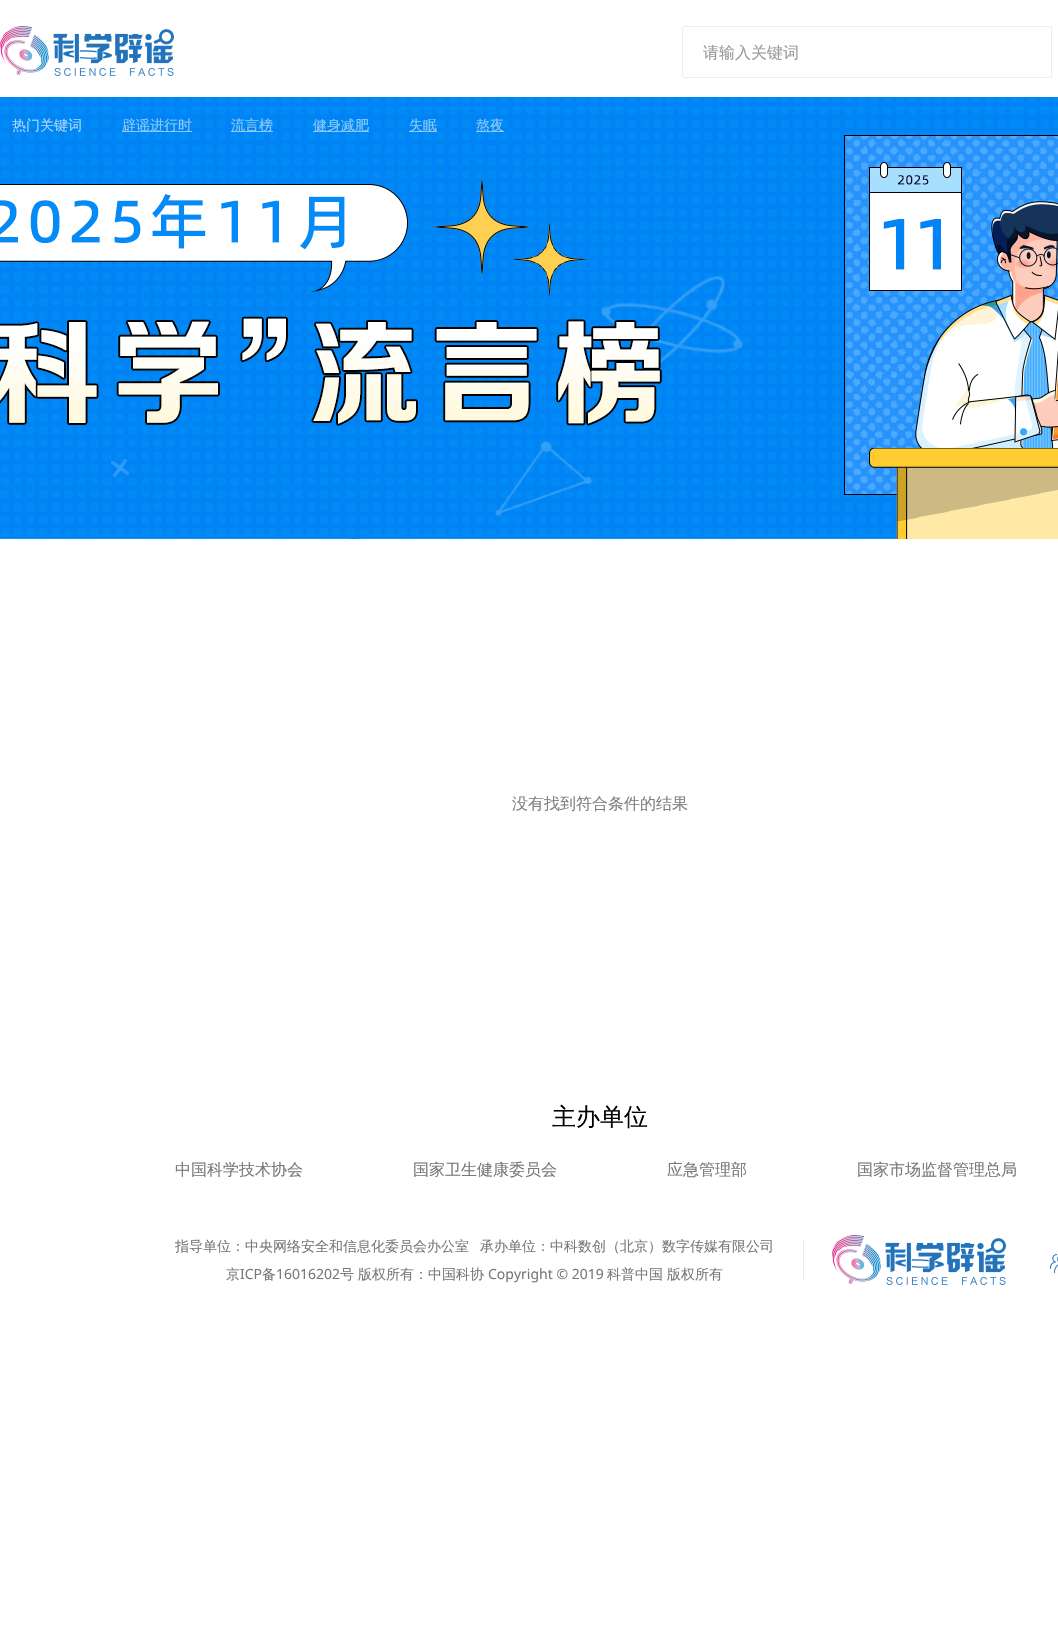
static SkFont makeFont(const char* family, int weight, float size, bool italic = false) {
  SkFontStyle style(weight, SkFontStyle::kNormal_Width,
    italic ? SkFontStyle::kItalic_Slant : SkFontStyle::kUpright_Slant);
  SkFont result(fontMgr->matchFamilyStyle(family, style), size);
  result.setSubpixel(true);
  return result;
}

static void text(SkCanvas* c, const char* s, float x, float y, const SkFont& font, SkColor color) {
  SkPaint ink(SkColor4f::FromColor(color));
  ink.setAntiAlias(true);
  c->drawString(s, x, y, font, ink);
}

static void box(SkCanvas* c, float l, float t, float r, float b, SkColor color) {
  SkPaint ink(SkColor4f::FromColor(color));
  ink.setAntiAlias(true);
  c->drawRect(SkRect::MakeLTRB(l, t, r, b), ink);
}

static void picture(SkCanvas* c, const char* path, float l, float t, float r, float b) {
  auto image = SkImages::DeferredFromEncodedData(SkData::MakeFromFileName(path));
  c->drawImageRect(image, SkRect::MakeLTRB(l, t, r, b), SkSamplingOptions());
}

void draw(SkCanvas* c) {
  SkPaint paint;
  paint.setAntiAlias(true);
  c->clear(0xffffffff);
  picture(c, "img_01.png", 0, 26, 174, 76);
  paint.setStyle(SkPaint::kStroke_Style);
  paint.setStrokeWidth(1);
  paint.setColor(0xffececec);
  c->drawPath(SkPathBuilder().moveTo(684, 26.5f).lineTo(1051.5f, 26.5f).lineTo(1051.5f, 77.5f).lineTo(684, 77.5f).cubicTo(683, 77.5f, 682.5f, 77, 682.5f, 76).lineTo(682.5f, 28).cubicTo(682.5f, 27, 683, 26.5f, 684, 26.5f).close().detach(), paint);
  SkFont face1 = makeFont("WenQuanYi Zen Hei", 500, 16);
  text(c, "请输入关键词", 703, 58, face1, 0xff999999);
  picture(c, "img_02.png", 0, 97, 1058, 539);
  SkFont face2 = makeFont("WenQuanYi Zen Hei", 500, 14);
  text(c, "热门关键词", 12, 130, face2, 0xffabd7fc);
  box(c, 122, 131, 192, 132, 0x8cffffff);
  text(c, "辟谣进行时", 122, 130, face2, 0xff90cafb);
  box(c, 231, 131, 273, 132, 0x8cffffff);
  text(c, "流言榜", 231, 130, face2, 0xff90cafb);
  box(c, 313, 131, 369, 132, 0x8cffffff);
  text(c, "健身减肥", 313, 130, face2, 0xff90cafb);
  box(c, 409, 131, 437, 132, 0x8cffffff);
  text(c, "失眠", 409, 130, face2, 0xff90cafb);
  box(c, 476, 131, 504, 132, 0x8cffffff);
  text(c, "熬夜", 476, 130, face2, 0xff90cafb);
  text(c, "没有找到符合条件的结果", 512, 809, face1, 0xff808080);
  SkFont face3 = makeFont("WenQuanYi Zen Hei", 500, 24);
  text(c, "主办单位", 552, 1125, face3, 0xff000000);
  text(c, "中国科学技术协会", 175, 1175, face1, 0xff787878);
  text(c, "国家卫生健康委员会", 413, 1175, face1, 0xff787878);
  text(c, "应急管理部", 667, 1175, face1, 0xff787878);
  text(c, "国家市场监督管理总局", 857, 1175, face1, 0xff787878);
  text(c, "指导单位：中央网络安全和信息化委员会办公室", 175, 1251, face2, 0xff787878);
  text(c, "承办单位：中科数创（北京）数字传媒有限公司", 480, 1251, face2, 0xff787878);
  box(c, 803, 1240, 804, 1280, 0xffeaeaea);
  text(c, "京", 226, 1279, face2, 0xff787878);
  SkFont face4 = makeFont("Noto Sans", 400, 14);
  text(c, "ICP", 240, 1279, face4, 0xff787878);
  text(c, "备", 262, 1279, face2, 0xff787878);
  text(c, "16016202", 276, 1279, face4, 0xff787878);
  text(c, "号", 340, 1279, face2, 0xff787878);
  text(c, "版权所有：中国科协", 358, 1279, face2, 0xff787878);
  text(c, "Copyright © 2019", 488, 1279, face4, 0xff787878);
  text(c, "科普中国", 607, 1279, face2, 0xff787878);
  text(c, "版权所有", 667, 1279, face2, 0xff787878);
  picture(c, "img_01.png", 832, 1235, 1006, 1285);
  picture(c, "img_03.png", 1050, 1254, 1058, 1273);
}
